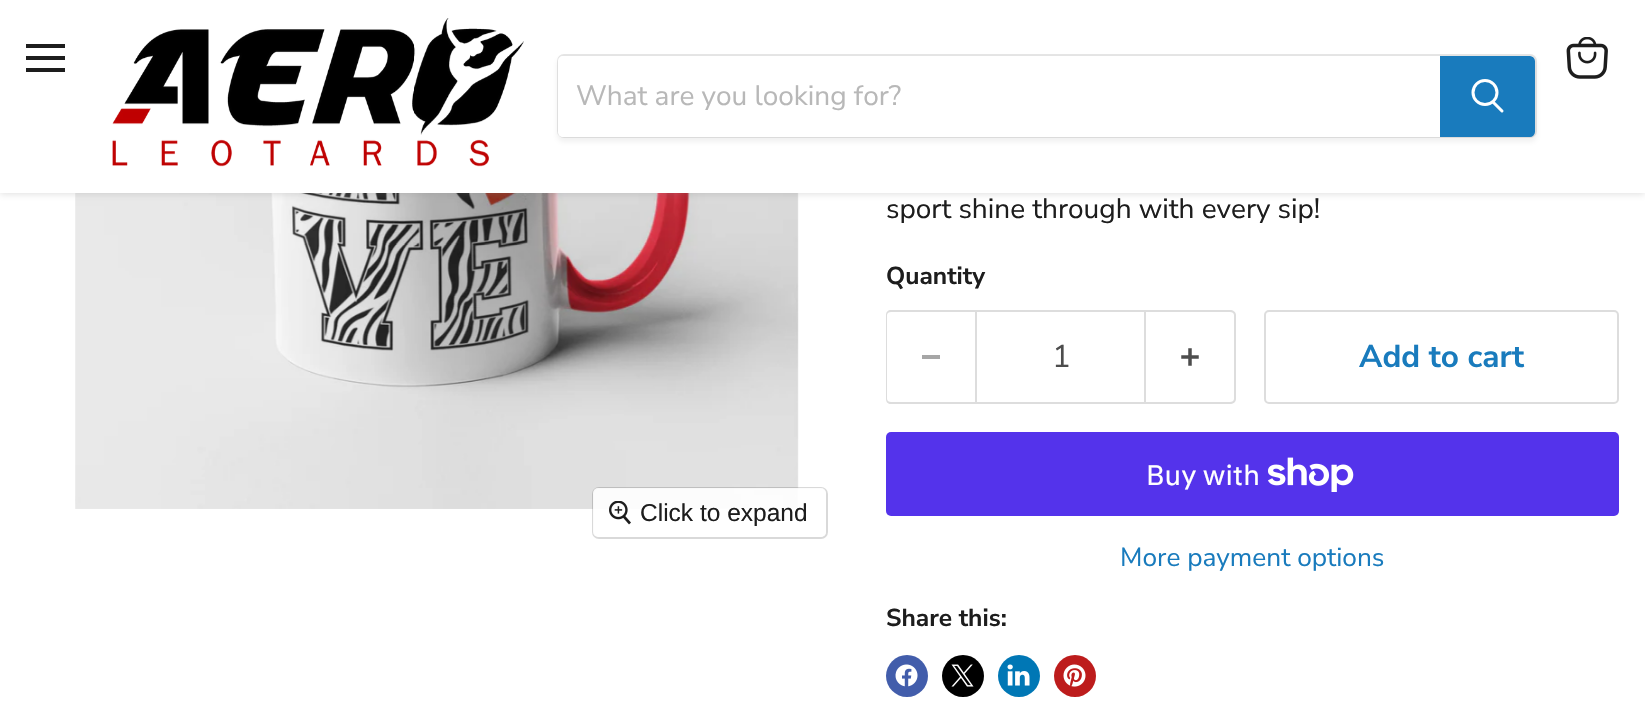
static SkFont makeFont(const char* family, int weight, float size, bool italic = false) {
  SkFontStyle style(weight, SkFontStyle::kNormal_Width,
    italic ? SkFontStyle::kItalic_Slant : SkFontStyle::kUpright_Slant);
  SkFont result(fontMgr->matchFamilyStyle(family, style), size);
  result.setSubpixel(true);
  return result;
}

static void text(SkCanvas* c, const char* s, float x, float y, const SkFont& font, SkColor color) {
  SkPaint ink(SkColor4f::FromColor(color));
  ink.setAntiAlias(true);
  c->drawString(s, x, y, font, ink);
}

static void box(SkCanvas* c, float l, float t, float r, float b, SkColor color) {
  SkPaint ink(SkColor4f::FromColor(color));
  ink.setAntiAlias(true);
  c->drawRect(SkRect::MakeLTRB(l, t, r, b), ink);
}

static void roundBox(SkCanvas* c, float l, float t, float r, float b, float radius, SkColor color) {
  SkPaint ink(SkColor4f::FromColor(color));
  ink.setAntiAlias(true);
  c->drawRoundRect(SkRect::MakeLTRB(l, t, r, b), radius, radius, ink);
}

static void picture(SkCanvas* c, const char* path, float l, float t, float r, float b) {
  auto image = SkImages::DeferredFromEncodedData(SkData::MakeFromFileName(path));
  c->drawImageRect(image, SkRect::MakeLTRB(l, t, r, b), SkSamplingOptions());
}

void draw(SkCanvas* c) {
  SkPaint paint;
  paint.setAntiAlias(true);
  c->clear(0xffffffff);
  picture(c, "img_03.png", 75, 193, 799, 509);
  paint.setColor(0x40808080);
  paint.setMaskFilter(SkMaskFilter::MakeBlur(kNormal_SkBlurStyle, 3.5f));
  c->drawRect(SkRect::MakeLTRB(0, 2, 1645, 194), paint);
  paint.setMaskFilter(nullptr);
  box(c, 0, 0, 1645, 193, 0xffffffff);
  box(c, 26, 44, 65, 48, 0xff1d1d1d);
  box(c, 26, 56, 65, 60, 0xff1d1d1d);
  box(c, 26, 68, 65, 72, 0xff1d1d1d);
  picture(c, "img_01.png", 1566, 37, 1608, 79);
  picture(c, "img_02.png", 112, 18, 524, 167);
  paint.setColor(0x1c808080);
  paint.setMaskFilter(SkMaskFilter::MakeBlur(kNormal_SkBlurStyle, 2.5f));
  c->drawRoundRect(SkRect::MakeLTRB(557, 58, 1537, 142), 7, 7, paint);
  paint.setMaskFilter(nullptr);
  paint.setStyle(SkPaint::kStroke_Style);
  paint.setStrokeWidth(2);
  paint.setColor(0x33808080);
  c->drawRoundRect(SkRect::MakeLTRB(558, 55, 1536, 137), 6, 6, paint);
  paint.setStyle(SkPaint::kFill_Style);
  paint.setColor(0xffffffff);
  c->drawPath(SkPathBuilder().moveTo(563, 56).lineTo(1440, 56).lineTo(1440, 137).lineTo(563, 137).cubicTo(560, 137, 558, 135, 558, 132).lineTo(558, 61).cubicTo(558, 58, 560, 56, 563, 56).close().detach(), paint);
  SkFont face1 = makeFont("Nunito Sans", 400, 28);
  text(c, "What are you looking for?", 576, 105, face1, 0xffb8b8b8);
  paint.setColor(0xff197bbd);
  c->drawPath(SkPathBuilder().moveTo(1441, 57).lineTo(1530, 57).cubicTo(1532, 57, 1534, 59, 1534, 61).lineTo(1534, 132).cubicTo(1534, 134, 1532, 136, 1530, 136).lineTo(1441, 136).close().detach(), paint);
  paint.setStyle(SkPaint::kStroke_Style);
  c->drawPath(SkPathBuilder().moveTo(1441, 57).lineTo(1530, 57).cubicTo(1532, 57, 1534, 59, 1534, 61).lineTo(1534, 132).cubicTo(1534, 134, 1532, 136, 1530, 136).lineTo(1441, 136).close().detach(), paint);
  paint.setStrokeWidth(3);
  paint.setStrokeCap(SkPaint::kRound_Cap);
  paint.setColor(0xffffffff);
  c->drawPath(SkPathBuilder().moveTo(1502, 111).lineTo(1493.5f, 102.5f).detach(), paint);
  paint.setStrokeCap(SkPaint::kButt_Cap);
  c->drawCircle(1485, 92.5f, 12, paint);
  paint.setStrokeWidth(2);
  paint.setColor(0x26000000);
  c->drawRoundRect(SkRect::MakeLTRB(593, 488, 827, 538), 6, 6, paint);
  roundBox(c, 593, 488, 826, 537, 5, 0xe6ffffff);
  picture(c, "img_04.png", 609, 501, 631, 525);
  SkFont face2 = makeFont("Liberation Sans", 400, 24.5f);
  text(c, "Click to expand", 640, 521, face2, 0xff1d1d1d);
  text(c, "sport shine through with every sip!", 886, 218, face1, 0xff1d1d1d);
  SkFont face3 = makeFont("Nunito Sans", 700, 24.5f);
  text(c, "Quantity", 886, 284, face3, 0xff1d1d1d);
  paint.setStyle(SkPaint::kFill_Style);
  paint.setColor(0xffdddddd);
  c->drawPath(SkPathBuilder(SkPathFillType::kEvenOdd).moveTo(891, 310).lineTo(975, 310).lineTo(975, 404).lineTo(891, 404).cubicTo(888, 404, 886, 402, 886, 399).lineTo(886, 315).cubicTo(886, 312, 888, 310, 891, 310).close().moveTo(891, 312).lineTo(975, 312).lineTo(975, 402).lineTo(891, 402).cubicTo(889, 402, 887, 401, 887, 399).lineTo(887, 315).cubicTo(887, 313, 889, 312, 891, 312).close().detach(), paint);
  box(c, 922, 355, 940, 359, 0xffa6a6a6);
  paint.setStyle(SkPaint::kStroke_Style);
  c->drawRect(SkRect::MakeLTRB(976, 311, 1145, 403), paint);
  SkFont face4 = makeFont("Nunito Sans", 400, 31.5f);
  text(c, "1", 1052, 367, face4, 0xff4d4d4d);
  paint.setStyle(SkPaint::kFill_Style);
  c->drawPath(SkPathBuilder(SkPathFillType::kEvenOdd).moveTo(1146, 310).lineTo(1230, 310).cubicTo(1233, 310, 1236, 312, 1236, 315).lineTo(1236, 399).cubicTo(1236, 402, 1233, 404, 1230, 404).lineTo(1146, 404).close().moveTo(1146, 312).lineTo(1230, 312).cubicTo(1232, 312, 1234, 313, 1234, 315).lineTo(1234, 399).cubicTo(1234, 401, 1232, 402, 1230, 402).lineTo(1146, 402).close().detach(), paint);
  picture(c, "img_05.png", 1181, 348, 1199, 366);
  paint.setStyle(SkPaint::kStroke_Style);
  c->drawRoundRect(SkRect::MakeLTRB(1265, 311, 1618, 403), 4, 4, paint);
  SkFont face5 = makeFont("Nunito Sans", 700, 31.5f);
  text(c, "Add to cart", 1359, 367, face5, 0xff197bbd);
  roundBox(c, 886, 432, 1619, 516, 5, 0xff5433eb);
  SkFont face6 = makeFont("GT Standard", 400, 28);
  text(c, "Buy with", 1146, 485, face6, 0xffffffff);
  picture(c, "img_06.png", 1268, 457, 1354, 492);
  SkFont face7 = makeFont("Nunito Sans", 400, 26.25f);
  text(c, "More payment options", 1120, 566, face7, 0xff197bbd);
  text(c, "Share this:", 886, 626, face3, 0xff1d1d1d);
  paint.setStyle(SkPaint::kFill_Style);
  paint.setColor(0xff425dab);
  c->drawCircle(907, 676, 21, paint);
  picture(c, "img_07.png", 895, 664, 918, 687);
  paint.setColor(0xff000000);
  c->drawCircle(963, 676, 21, paint);
  picture(c, "img_08.png", 951, 664, 974, 687);
  paint.setColor(0xff0077b5);
  c->drawCircle(1019, 676, 21, paint);
  picture(c, "img_09.png", 1007, 664, 1030, 686);
  paint.setColor(0xffbd1c1c);
  c->drawCircle(1075, 676, 21, paint);
  picture(c, "img_10.png", 1063, 664, 1086, 687);
}
